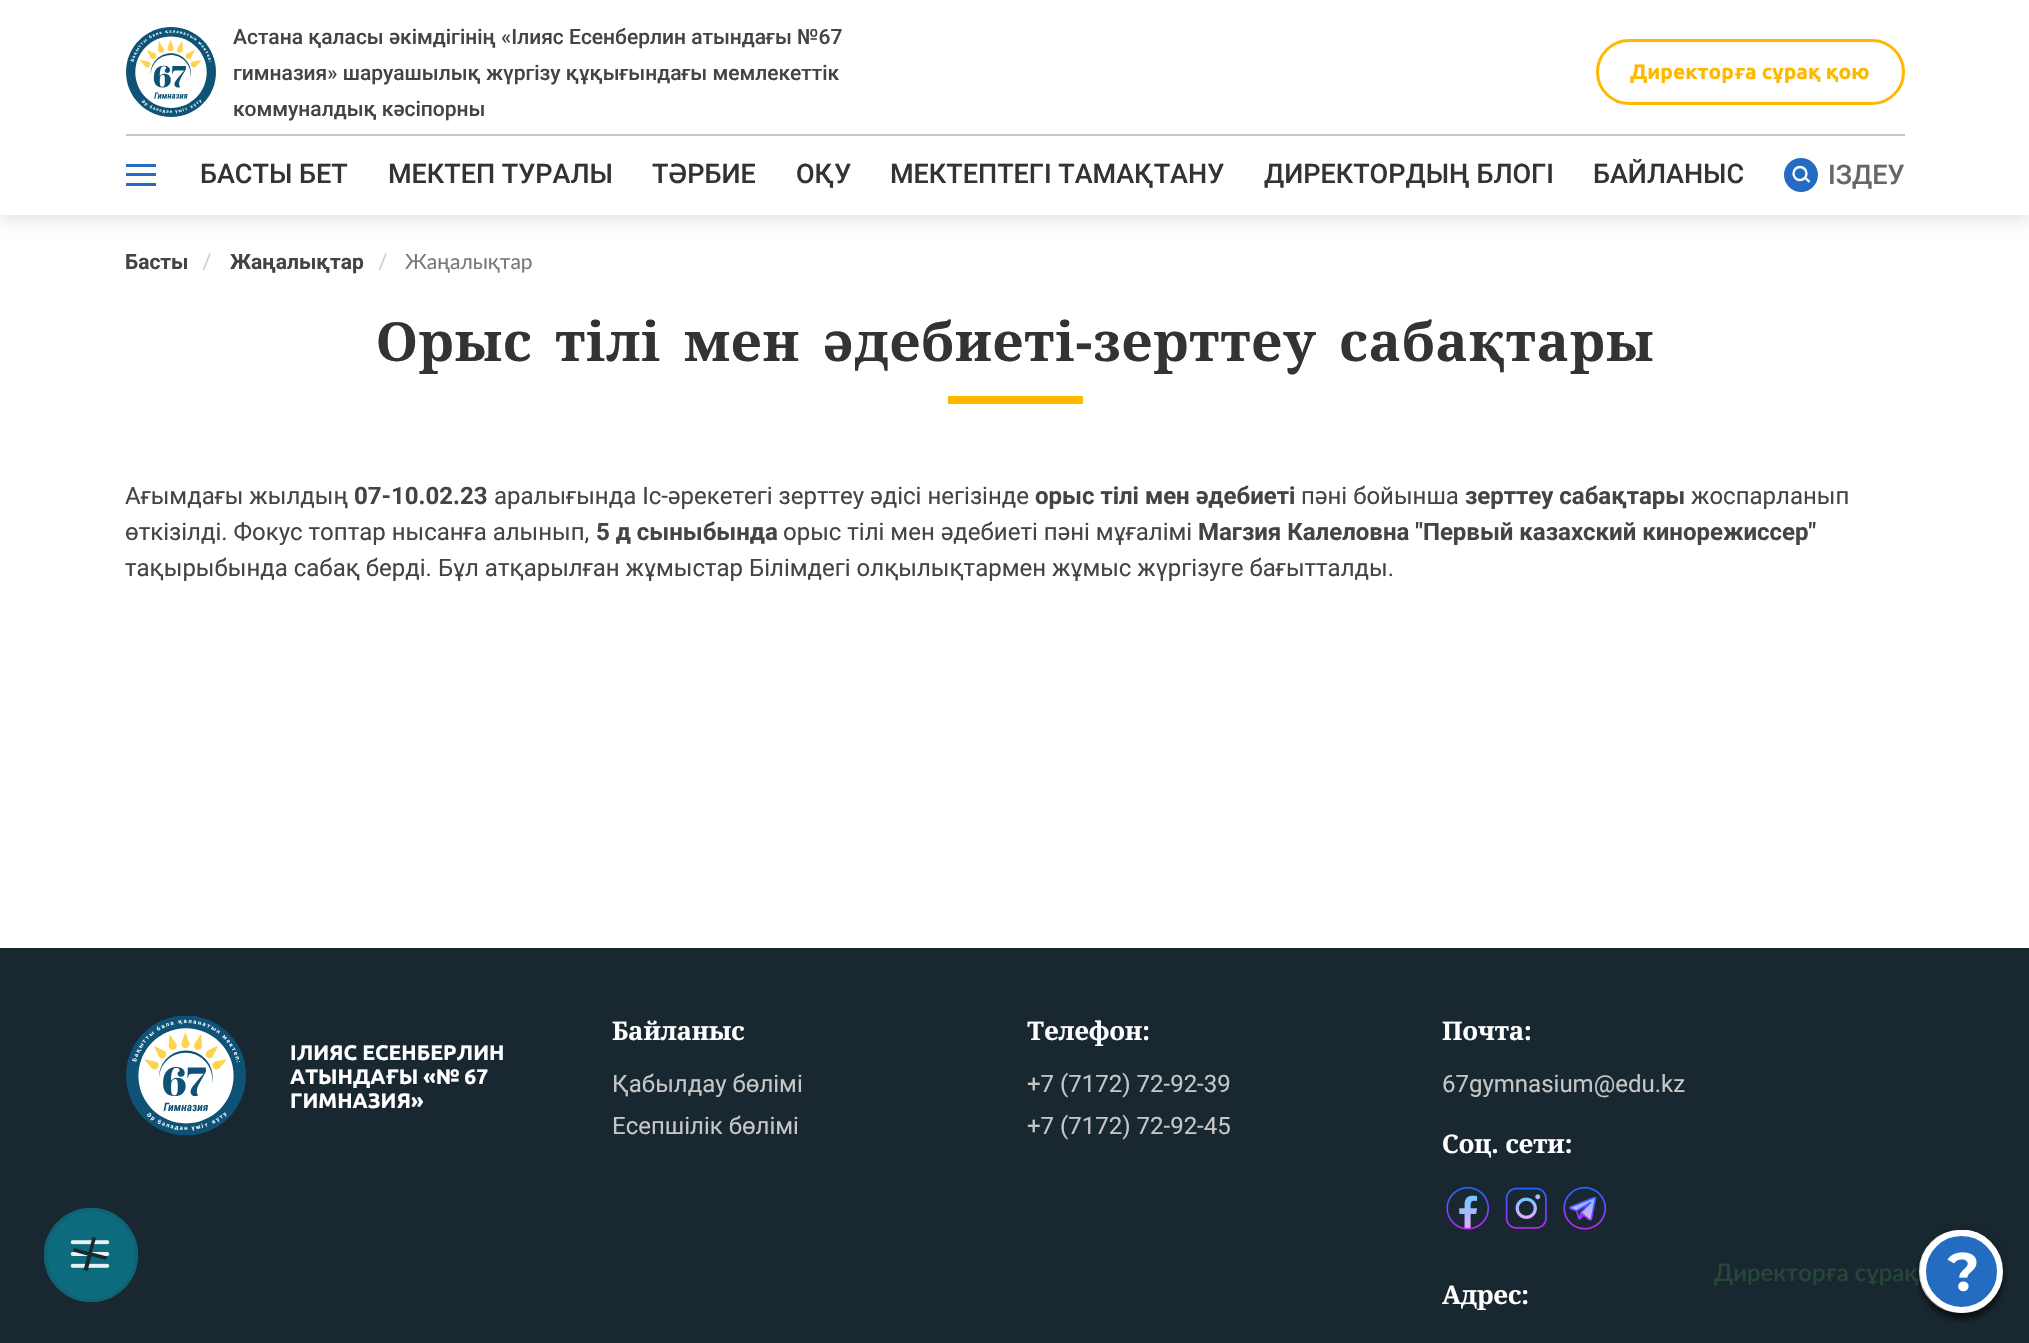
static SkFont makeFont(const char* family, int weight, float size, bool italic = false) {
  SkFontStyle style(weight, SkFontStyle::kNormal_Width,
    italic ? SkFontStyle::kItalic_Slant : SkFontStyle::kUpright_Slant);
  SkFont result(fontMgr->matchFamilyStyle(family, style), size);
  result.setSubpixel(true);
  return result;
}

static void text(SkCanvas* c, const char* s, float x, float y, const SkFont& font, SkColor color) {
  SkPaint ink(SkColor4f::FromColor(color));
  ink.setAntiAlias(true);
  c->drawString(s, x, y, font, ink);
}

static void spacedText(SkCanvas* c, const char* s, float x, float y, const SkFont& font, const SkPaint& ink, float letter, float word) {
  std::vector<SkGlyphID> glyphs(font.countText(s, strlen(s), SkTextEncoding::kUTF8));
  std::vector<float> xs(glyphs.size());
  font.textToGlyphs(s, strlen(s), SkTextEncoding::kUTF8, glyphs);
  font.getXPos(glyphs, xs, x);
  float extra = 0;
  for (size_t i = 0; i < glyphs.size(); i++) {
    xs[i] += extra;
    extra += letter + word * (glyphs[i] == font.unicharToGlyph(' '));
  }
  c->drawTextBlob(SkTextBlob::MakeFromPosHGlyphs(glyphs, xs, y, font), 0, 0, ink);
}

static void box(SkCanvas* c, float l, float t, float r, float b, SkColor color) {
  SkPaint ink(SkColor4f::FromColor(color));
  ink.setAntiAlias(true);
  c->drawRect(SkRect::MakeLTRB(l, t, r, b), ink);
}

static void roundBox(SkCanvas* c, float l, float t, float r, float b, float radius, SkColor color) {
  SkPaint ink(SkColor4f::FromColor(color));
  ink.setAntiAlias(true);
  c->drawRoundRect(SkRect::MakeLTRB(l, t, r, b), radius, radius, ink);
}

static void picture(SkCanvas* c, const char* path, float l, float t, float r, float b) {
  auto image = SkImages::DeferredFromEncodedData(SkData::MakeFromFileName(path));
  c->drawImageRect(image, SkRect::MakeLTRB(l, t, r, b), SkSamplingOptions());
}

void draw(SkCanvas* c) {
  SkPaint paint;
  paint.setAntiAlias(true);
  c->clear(0xffffffff);
  paint.setColor(0x1a000000);
  paint.setMaskFilter(SkMaskFilter::MakeBlur(kNormal_SkBlurStyle, 7.5f));
  c->drawRect(SkRect::MakeLTRB(0, 6, 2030, 221), paint);
  paint.setMaskFilter(nullptr);
  box(c, 0, 0, 2029, 215, 0xffffffff);
  picture(c, "img_01.png", 126, 27, 216, 117);
  SkFont face1 = makeFont("Roboto", 500, 21);
  text(c, "Астана қаласы әкімдігінің «Ілияс Есенберлин атындағы №67", 233, 44, face1, 0xff444444);
  text(c, "гимназия» шаруашылық жүргізу құқығындағы мемлекеттік", 233, 80, face1, 0xff444444);
  text(c, "коммуналдық кәсіпорны", 233, 116, face1, 0xff444444);
  paint.setStyle(SkPaint::kStroke_Style);
  paint.setStrokeWidth(3);
  paint.setColor(0xffffb800);
  c->drawRoundRect(SkRect::MakeLTRB(1597.5f, 40.5f, 1903.5f, 103.5f), 31.5f, 31.5f, paint);
  SkFont face2 = makeFont("Ubuntu", 700, 21);
  text(c, "Директорға сұрақ қою", 1630, 79, face2, 0xffffb800);
  box(c, 126, 134, 1905, 136, 0xffc5c5c5);
  box(c, 126, 164, 156, 167, 0xff236cc1);
  box(c, 126, 173, 156, 176, 0xff236cc1);
  box(c, 126, 183, 156, 186, 0xff236cc1);
  SkFont face3 = makeFont("Roboto", 500, 27);
  text(c, "БАСТЫ БЕТ", 200, 183, face3, 0xff333333);
  text(c, "МЕКТЕП ТУРАЛЫ", 388, 183, face3, 0xff333333);
  text(c, "ТӘРБИЕ", 652, 183, face3, 0xff333333);
  text(c, "ОҚУ", 796, 183, face3, 0xff333333);
  text(c, "МЕКТЕПТЕГІ ТАМАҚТАНУ", 890, 183, face3, 0xff333333);
  text(c, "ДИРЕКТОРДЫҢ БЛОГІ", 1264, 183, face3, 0xff333333);
  text(c, "БАЙЛАНЫС", 1593, 183, face3, 0xff333333);
  paint.setStyle(SkPaint::kFill_Style);
  paint.setColor(0xff236cc1);
  c->drawCircle(1801, 175, 17, paint);
  paint.setStyle(SkPaint::kStroke_Style);
  paint.setStrokeWidth(2.4f);
  paint.setColor(0xffffffff);
  c->drawPath(SkPathBuilder().moveTo(1805.5f, 178).lineTo(1809.5f, 182).detach(), paint);
  c->drawCircle(1800, 173.5f, 6.5f, paint);
  text(c, "ІЗДЕУ", 1828, 184, face3, 0xff666666);
  SkFont face4 = makeFont("Roboto", 700, 21);
  text(c, "Басты", 125, 269, face4, 0xff444444);
  SkFont face5 = makeFont("Lato", 400, 21);
  text(c, "/", 202, 269, face5, 0xffcccccc);
  text(c, "Жаңалықтар", 230, 269, face4, 0xff444444);
  text(c, "/", 378, 269, face5, 0xffcccccc);
  text(c, "Жаңалықтар", 405, 269, face5, 0xff777777);
  SkFont face6 = makeFont("Noto Serif", 700, 54);
  paint.setStyle(SkPaint::kFill_Style);
  paint.setColor(0xff333333);
  spacedText(c, "Орыс тілі мен әдебиеті-зерттеу сабақтары", 376, 361, face6, paint, 1.1f, 7.5f);
  box(c, 948, 396, 1083, 404, 0xffffb800);
  SkFont face7 = makeFont("Roboto", 400, 24);
  text(c, "Ағымдағы жылдың", 125, 504, face7, 0xff444444);
  SkFont face8 = makeFont("Roboto", 700, 24);
  text(c, "07-10.02.23", 354, 504, face8, 0xff444444);
  text(c, "аралығында Іс-әрекетегі зерттеу әдісі негізінде", 494, 504, face7, 0xff444444);
  text(c, "орыс тілі мен әдебиеті", 1035, 504, face8, 0xff444444);
  text(c, "пәні бойынша", 1301, 504, face7, 0xff444444);
  text(c, "зерттеу сабақтары", 1465, 504, face8, 0xff444444);
  text(c, "жоспарланып", 1691, 504, face7, 0xff444444);
  text(c, "өткізілді. Фокус топтар нысанға алынып,", 125, 540, face7, 0xff444444);
  text(c, "5 д сыныбында", 596, 540, face8, 0xff444444);
  text(c, "орыс тілі мен әдебиеті пәні мұғалімі", 783, 540, face7, 0xff444444);
  text(c, "Магзия Калеловна \"Первый казахский кинорежиссер\"", 1198, 540, face8, 0xff444444);
  text(c, "тақырыбында сабақ берді. Бұл атқарылған жұмыстар Білімдегі олқылықтармен жұмыс жүргізуге бағытталды.", 125, 576, face7, 0xff444444);
  box(c, 0, 948, 2029, 1343, 0xff192830);
  paint.setColor(0xff0c6b7d);
  c->drawCircle(91, 1255, 45.5f, paint);
  paint.setStyle(SkPaint::kStroke_Style);
  paint.setStrokeWidth(3);
  paint.setColor(0xff0e6475);
  c->drawCircle(91, 1255, 45.5f, paint);
  picture(c, "img_02.png", 70, 1240, 110, 1268);
  paint.setStyle(SkPaint::kFill_Style);
  paint.setColor(0xff192830);
  c->drawPath(SkPathBuilder().moveTo(107, 1256.5f).lineTo(106, 1260).lineTo(91.5f, 1256).lineTo(87.5f, 1271).lineTo(83.5f, 1270).lineTo(87.5f, 1255.5f).lineTo(73, 1251.5f).lineTo(74, 1248).lineTo(88.5f, 1252).lineTo(92.5f, 1237).lineTo(96, 1238).lineTo(92, 1252.5f).close().detach(), paint);
  paint.setStyle(SkPaint::kStroke_Style);
  paint.setColor(0xff0e6475);
  c->drawCircle(91, 1255, 45.5f, paint);
  picture(c, "img_03.png", 126, 1016, 246, 1136);
  text(c, "ІЛИЯС ЕСЕНБЕРЛИН", 290, 1060, face2, 0xffffffff);
  text(c, "АТЫНДАҒЫ «№ 67", 290, 1084, face2, 0xffffffff);
  text(c, "ГИМНАЗИЯ»", 290, 1108, face2, 0xffffffff);
  SkFont face9 = makeFont("Noto Serif", 700, 25.5f);
  text(c, "Байланыс", 612, 1040, face9, 0xffffffff);
  text(c, "Қабылдау бөлімі", 612, 1092, face7, 0xffc6c6c6);
  text(c, "Есепшілік бөлімі", 612, 1134, face7, 0xffc6c6c6);
  text(c, "Телефон:", 1027, 1040, face9, 0xffffffff);
  text(c, "+7 (7172) 72-92-39", 1027, 1092, face7, 0xffc6c6c6);
  text(c, "+7 (7172) 72-92-45", 1027, 1134, face7, 0xffc6c6c6);
  text(c, "Почта:", 1442, 1040, face9, 0xffffffff);
  text(c, "67gymnasium@edu.kz", 1442, 1092, face7, 0xffc6c6c6);
  text(c, "Соц. сети:", 1442, 1153, face9, 0xffffffff);
  picture(c, "img_04.png", 1446, 1186, 1490, 1230);
  picture(c, "img_05.png", 1505, 1187, 1547, 1229);
  picture(c, "img_06.png", 1563, 1186, 1607, 1230);
  text(c, "Адрес:", 1442, 1304, face9, 0xffffffff);
  paint.setStyle(SkPaint::kFill_Style);
  paint.setColor(0x40000000);
  paint.setMaskFilter(SkMaskFilter::MakeBlur(kNormal_SkBlurStyle, 3));
  c->drawRoundRect(SkRect::MakeLTRB(1919, 1236, 2001, 1319), 41, 41, paint);
  paint.setMaskFilter(nullptr);
  paint.setStyle(SkPaint::kStroke_Style);
  paint.setStrokeWidth(6);
  paint.setColor(0xffffffff);
  c->drawRoundRect(SkRect::MakeLTRB(1922, 1233, 1998, 1310), 38, 38, paint);
  paint.setStyle(SkPaint::kFill_Style);
  paint.setColor(0x40000000);
  paint.setMaskFilter(SkMaskFilter::MakeBlur(kNormal_SkBlurStyle, 7.5f));
  c->drawRoundRect(SkRect::MakeLTRB(1926, 1230, 2001, 1313), 37.5f, 37.5f, paint);
  paint.setMaskFilter(nullptr);
  roundBox(c, 1926, 1230, 2001, 1313, 37.5f, 0xffffffff);
  paint.setMaskFilter(SkMaskFilter::MakeBlur(kNormal_SkBlurStyle, 3));
  c->drawRoundRect(SkRect::MakeLTRB(1926, 1236, 2001, 1319), 37.5f, 37.5f, paint);
  paint.setMaskFilter(nullptr);
  SkFont face10 = makeFont("Lato", 600, 24);
  text(c, "Директорға сұрақ", 1714, 1281, face10, 0xff264637);
  paint.setStyle(SkPaint::kStroke_Style);
  paint.setColor(0xffffffff);
  c->drawPath(SkPathBuilder().moveTo(1963.5f, 1233).cubicTo(1982.5f, 1233, 1998, 1250, 1998, 1271).cubicTo(1998, 1292.5f, 1982.5f, 1309.5f, 1963.5f, 1309.5f).cubicTo(1944.5f, 1309.5f, 1929, 1292.5f, 1929, 1271).cubicTo(1929, 1250, 1944.5f, 1233, 1963.5f, 1233).close().detach(), paint);
  paint.setStyle(SkPaint::kFill_Style);
  paint.setColor(0x40000000);
  paint.setMaskFilter(SkMaskFilter::MakeBlur(kNormal_SkBlurStyle, 3));
  c->drawRoundRect(SkRect::MakeLTRB(1920, 1236, 2003, 1319), 41.5f, 41.5f, paint);
  paint.setMaskFilter(nullptr);
  paint.setColor(0xff236cc1);
  c->drawCircle(1961.5f, 1271.5f, 38.5f, paint);
  paint.setStyle(SkPaint::kStroke_Style);
  paint.setColor(0xffffffff);
  c->drawCircle(1961.5f, 1271.5f, 38.5f, paint);
  picture(c, "img_07.png", 1947, 1252, 1977, 1292);
}
